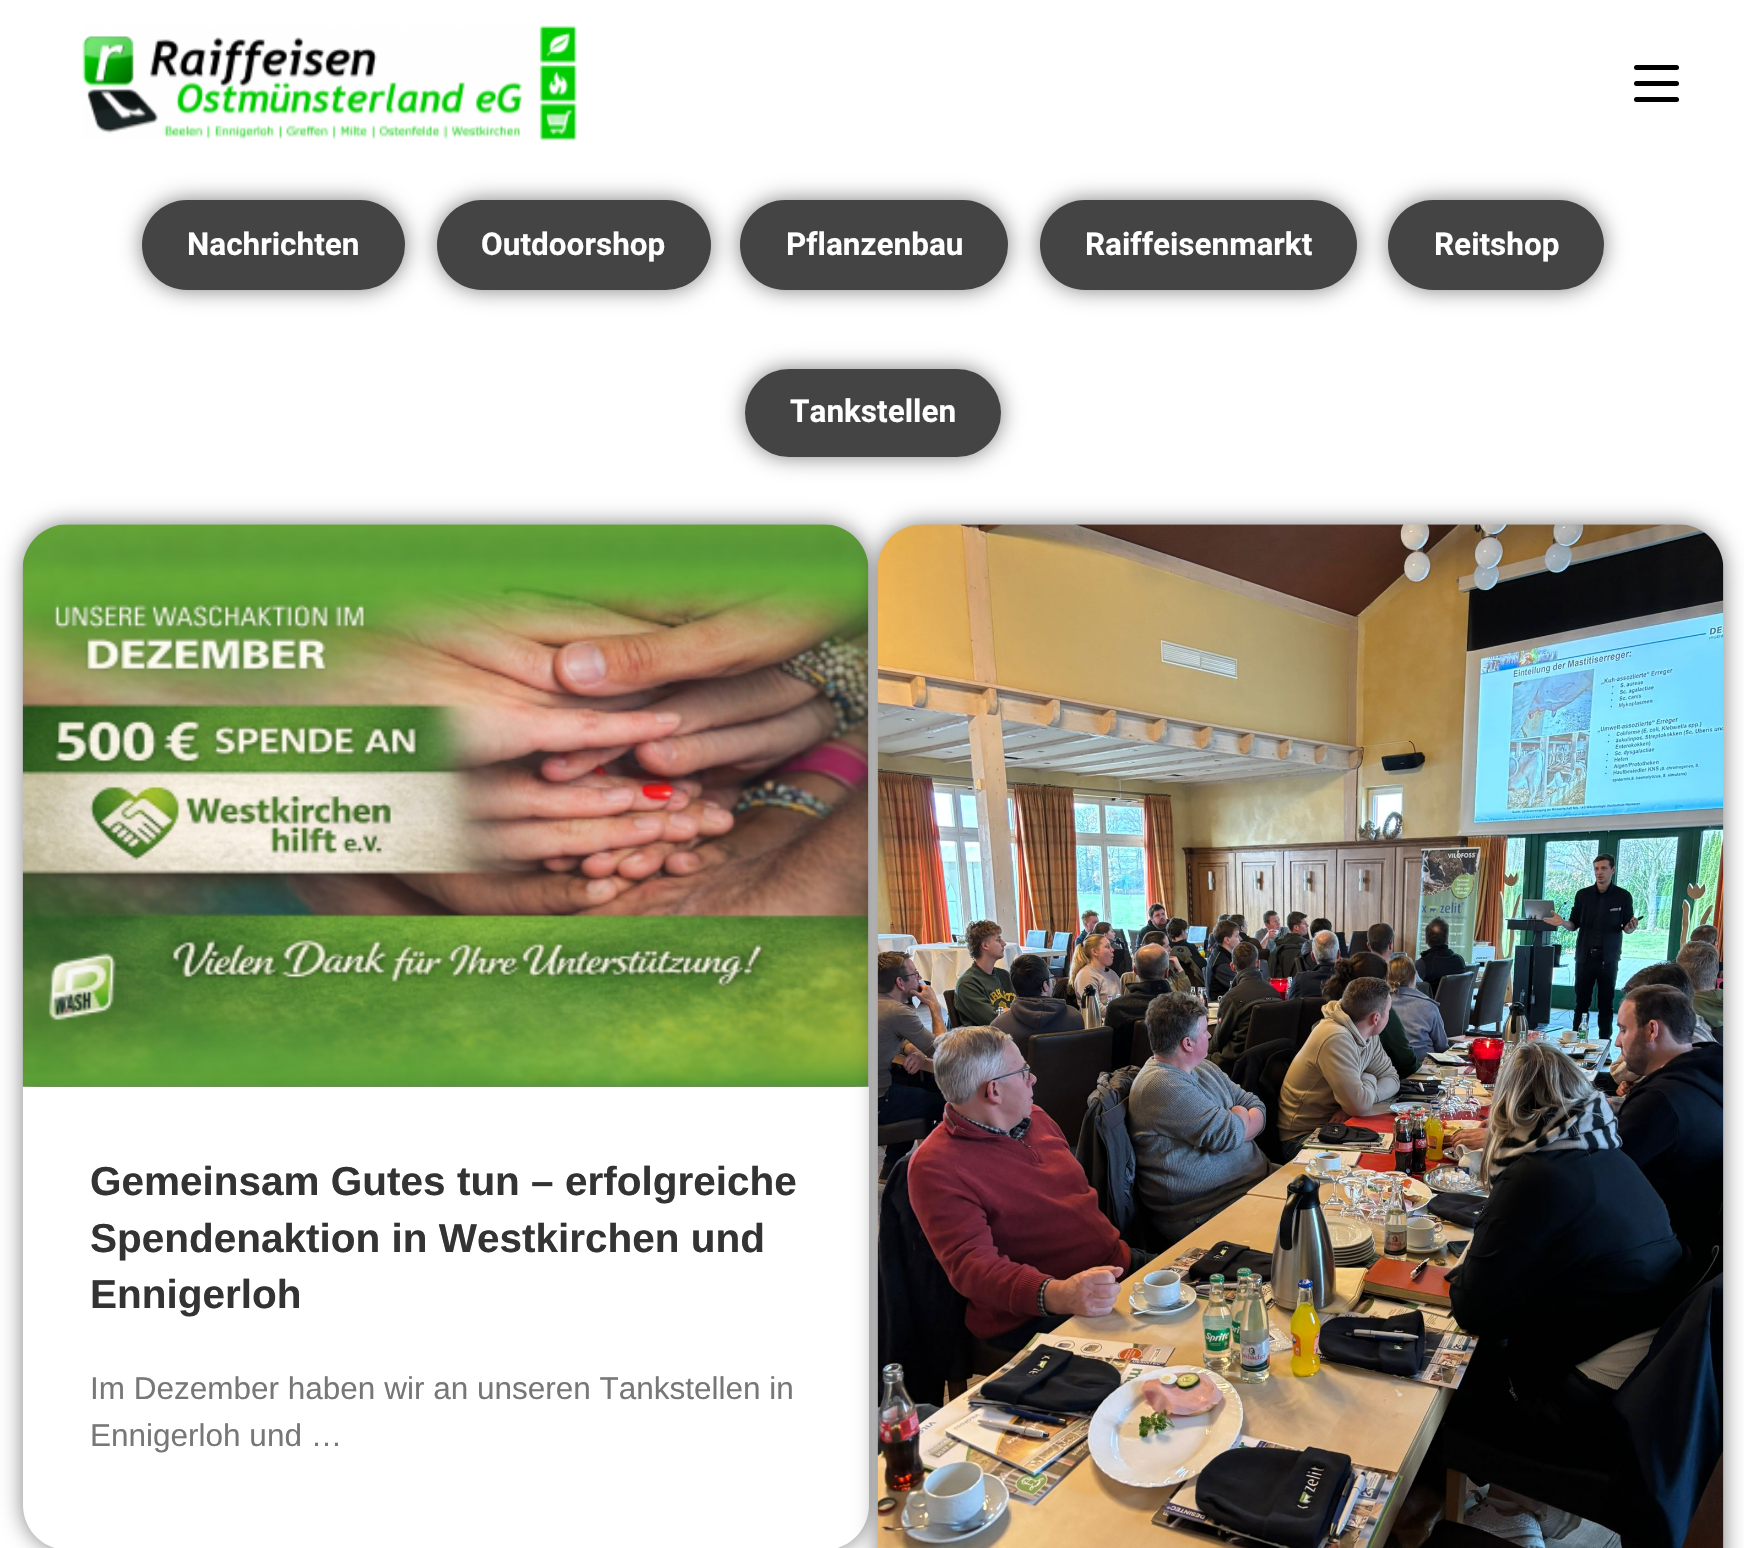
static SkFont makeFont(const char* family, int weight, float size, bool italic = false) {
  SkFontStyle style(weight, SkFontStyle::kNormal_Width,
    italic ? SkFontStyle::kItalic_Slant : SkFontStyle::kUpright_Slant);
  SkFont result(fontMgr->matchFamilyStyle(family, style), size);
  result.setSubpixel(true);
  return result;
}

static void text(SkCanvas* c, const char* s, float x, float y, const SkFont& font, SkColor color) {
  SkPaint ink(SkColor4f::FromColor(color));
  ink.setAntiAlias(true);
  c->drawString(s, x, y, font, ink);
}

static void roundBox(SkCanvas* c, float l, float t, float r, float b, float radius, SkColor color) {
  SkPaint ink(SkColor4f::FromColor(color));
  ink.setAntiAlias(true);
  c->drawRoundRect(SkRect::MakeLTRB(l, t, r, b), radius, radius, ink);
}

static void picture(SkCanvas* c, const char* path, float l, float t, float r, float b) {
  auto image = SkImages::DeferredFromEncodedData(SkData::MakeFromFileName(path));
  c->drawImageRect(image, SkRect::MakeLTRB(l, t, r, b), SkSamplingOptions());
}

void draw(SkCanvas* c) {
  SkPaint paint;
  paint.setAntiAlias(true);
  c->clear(0xffffffff);
  picture(c, "img_01.png", 82, 25, 577, 141);
  roundBox(c, 1634, 81, 1679, 86, 2.5f, 0xff000000);
  roundBox(c, 1634, 65, 1679, 70, 2.5f, 0xff000000);
  roundBox(c, 1634, 97, 1679, 102, 2.5f, 0xff000000);
  paint.setColor(0x80000000);
  paint.setMaskFilter(SkMaskFilter::MakeBlur(kNormal_SkBlurStyle, 11));
  c->drawRoundRect(SkRect::MakeLTRB(142, 200, 405, 290), 45, 45, paint);
  paint.setMaskFilter(nullptr);
  roundBox(c, 142, 200, 405, 290, 45, 0xff444444);
  SkFont face1 = makeFont("Roboto", 700, 31.5f);
  text(c, "Nachrichten", 187, 255, face1, 0xffffffff);
  paint.setMaskFilter(SkMaskFilter::MakeBlur(kNormal_SkBlurStyle, 11));
  c->drawRoundRect(SkRect::MakeLTRB(437, 200, 711, 290), 45, 45, paint);
  paint.setMaskFilter(nullptr);
  roundBox(c, 437, 200, 711, 290, 45, 0xff444444);
  text(c, "Outdoorshop", 481, 255, face1, 0xffffffff);
  paint.setMaskFilter(SkMaskFilter::MakeBlur(kNormal_SkBlurStyle, 11));
  c->drawRoundRect(SkRect::MakeLTRB(740, 200, 1008, 290), 45, 45, paint);
  paint.setMaskFilter(nullptr);
  roundBox(c, 740, 200, 1008, 290, 45, 0xff444444);
  text(c, "Pflanzenbau", 786, 255, face1, 0xffffffff);
  paint.setMaskFilter(SkMaskFilter::MakeBlur(kNormal_SkBlurStyle, 11));
  c->drawRoundRect(SkRect::MakeLTRB(1040, 200, 1357, 290), 45, 45, paint);
  paint.setMaskFilter(nullptr);
  roundBox(c, 1040, 200, 1357, 290, 45, 0xff444444);
  text(c, "Raiffeisenmarkt", 1085, 255, face1, 0xffffffff);
  paint.setMaskFilter(SkMaskFilter::MakeBlur(kNormal_SkBlurStyle, 11));
  c->drawRoundRect(SkRect::MakeLTRB(1388, 200, 1604, 290), 45, 45, paint);
  paint.setMaskFilter(nullptr);
  roundBox(c, 1388, 200, 1604, 290, 45, 0xff444444);
  text(c, "Reitshop", 1434, 255, face1, 0xffffffff);
  paint.setMaskFilter(SkMaskFilter::MakeBlur(kNormal_SkBlurStyle, 11));
  c->drawRoundRect(SkRect::MakeLTRB(745, 369, 1001, 457), 44, 44, paint);
  paint.setMaskFilter(nullptr);
  roundBox(c, 745, 369, 1001, 457, 44, 0xff444444);
  text(c, "Tankstellen", 790, 422, face1, 0xffffffff);
  paint.setMaskFilter(SkMaskFilter::MakeBlur(kNormal_SkBlurStyle, 11));
  c->drawRoundRect(SkRect::MakeLTRB(23, 524, 869, 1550), 45, 45, paint);
  paint.setMaskFilter(nullptr);
  picture(c, "img_02.png", 22, 524, 869, 1087);
  paint.setColor(0xffffffff);
  c->drawPath(SkPathBuilder().moveTo(23, 1087).lineTo(869, 1087).lineTo(869, 1505).cubicTo(869, 1530, 849, 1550, 824, 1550).lineTo(68, 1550).cubicTo(43, 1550, 23, 1530, 23, 1505).close().detach(), paint);
  SkFont face2 = makeFont("Liberation Sans", 700, 40.5f);
  text(c, "Gemeinsam Gutes tun – erfolgreiche", 90, 1195, face2, 0xff333333);
  text(c, "Spendenaktion in Westkirchen und", 90, 1252, face2, 0xff333333);
  text(c, "Ennigerloh", 90, 1308, face2, 0xff333333);
  SkFont face3 = makeFont("Liberation Sans", 400, 31.5f);
  text(c, "Im Dezember haben wir an unseren Tankstellen in", 90, 1399, face3, 0xff777777);
  text(c, "Ennigerloh und …", 90, 1446, face3, 0xff777777);
  paint.setColor(0x80000000);
  paint.setMaskFilter(SkMaskFilter::MakeBlur(kNormal_SkBlurStyle, 11));
  c->drawRoundRect(SkRect::MakeLTRB(878, 524, 1724, 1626), 45, 45, paint);
  paint.setMaskFilter(nullptr);
  picture(c, "img_03.png", 877, 524, 1724, 1548);
}
